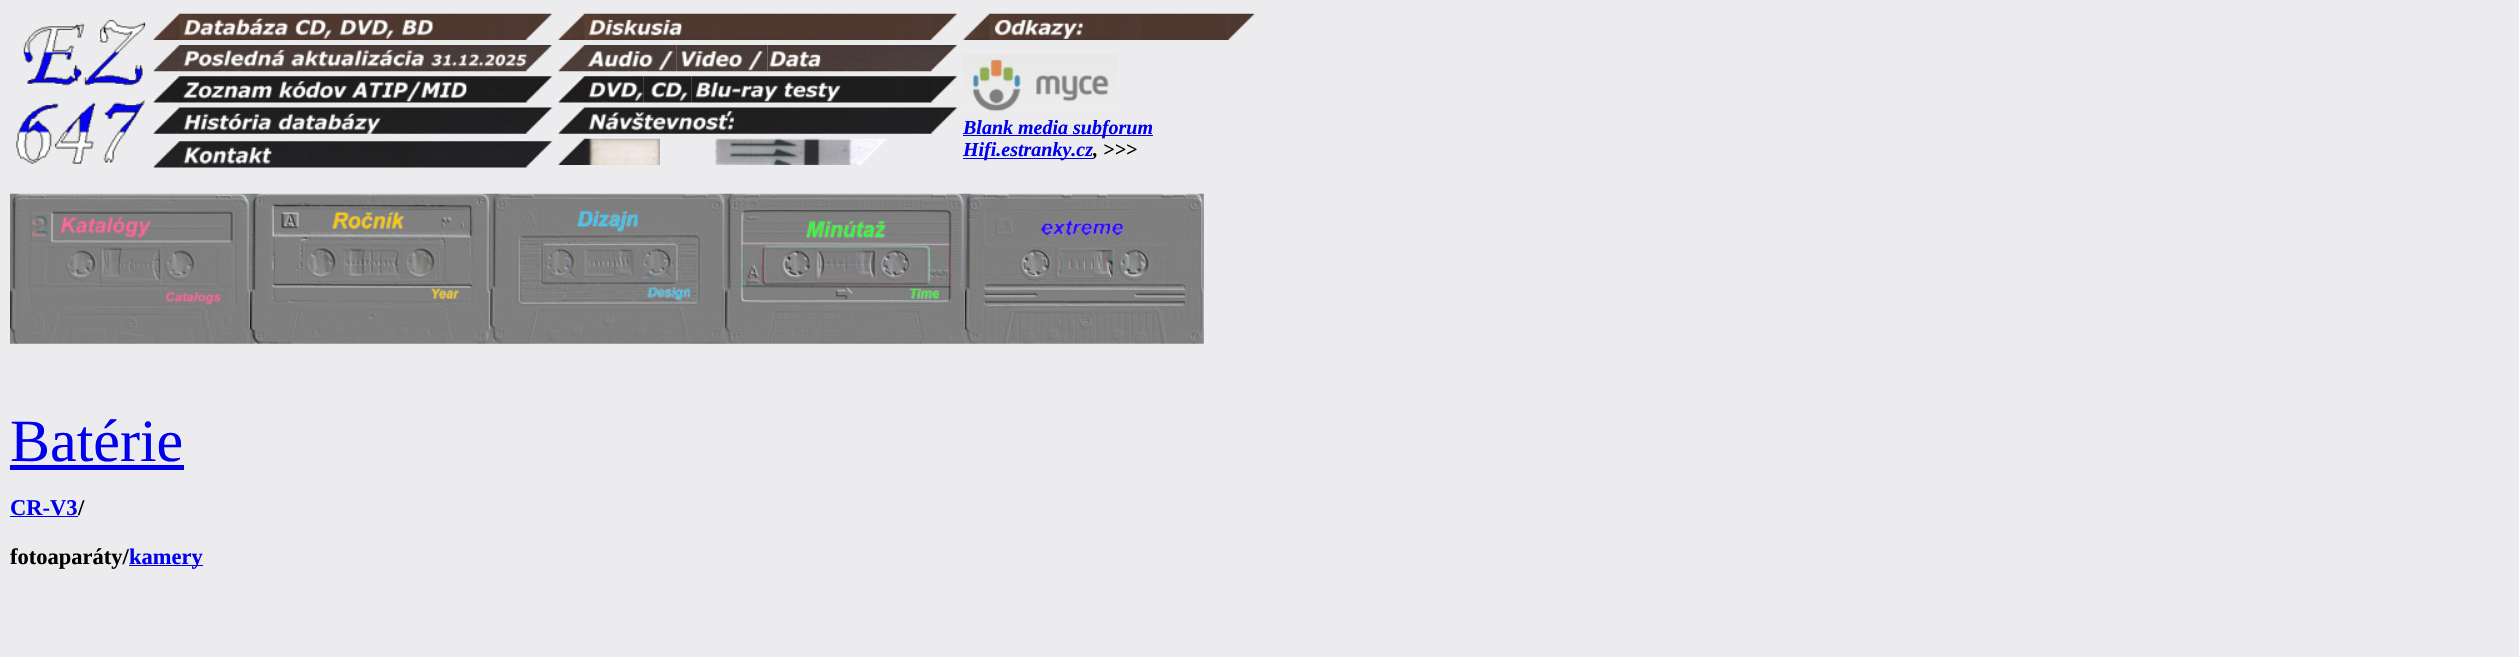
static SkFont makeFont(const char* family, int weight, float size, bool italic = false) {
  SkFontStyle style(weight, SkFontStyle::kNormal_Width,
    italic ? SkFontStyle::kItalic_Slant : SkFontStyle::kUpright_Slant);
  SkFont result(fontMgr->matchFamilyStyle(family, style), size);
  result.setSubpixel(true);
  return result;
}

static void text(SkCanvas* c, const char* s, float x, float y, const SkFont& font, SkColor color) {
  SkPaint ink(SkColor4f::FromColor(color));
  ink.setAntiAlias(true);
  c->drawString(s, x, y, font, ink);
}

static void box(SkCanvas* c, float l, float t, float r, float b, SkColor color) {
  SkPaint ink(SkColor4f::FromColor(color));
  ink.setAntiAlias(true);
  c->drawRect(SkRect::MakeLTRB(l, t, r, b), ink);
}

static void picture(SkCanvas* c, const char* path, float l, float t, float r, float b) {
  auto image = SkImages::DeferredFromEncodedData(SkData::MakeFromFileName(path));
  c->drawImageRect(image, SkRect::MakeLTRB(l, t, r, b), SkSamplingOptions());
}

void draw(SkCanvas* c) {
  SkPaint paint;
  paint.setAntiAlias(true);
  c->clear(0xffecebed);
  picture(c, "img_01.png", 16, 19, 147, 164);
  picture(c, "img_02.png", 152, 13, 553, 40);
  picture(c, "img_03.png", 557, 13, 958, 40);
  picture(c, "img_04.png", 962, 13, 1255, 40);
  picture(c, "img_05.png", 152, 76, 553, 103);
  picture(c, "img_06.png", 557, 76, 644, 103);
  picture(c, "img_07.png", 643, 76, 692, 103);
  picture(c, "img_08.png", 691, 76, 958, 103);
  picture(c, "img_09.png", 152, 107, 553, 134);
  picture(c, "img_10.png", 557, 107, 958, 134);
  picture(c, "img_11.png", 153, 45, 553, 72);
  picture(c, "img_12.png", 558, 45, 677, 72);
  picture(c, "img_13.png", 676, 45, 768, 72);
  picture(c, "img_14.png", 767, 45, 958, 72);
  picture(c, "img_15.png", 963, 54, 1117, 112);
  box(c, 963, 135, 1153, 136, 0xff0000ee);
  SkFont face1 = makeFont("Liberation Serif", 700, 20, true);
  text(c, "Blank media subforum", 963, 134, face1, 0xff0000ee);
  box(c, 963, 158, 1093, 159, 0xff0000ee);
  text(c, "Hifi.estranky.cz", 963, 156, face1, 0xff0000ee);
  text(c, ", >>>", 1093, 156, face1, 0xff000000);
  picture(c, "img_16.png", 152, 141, 553, 168);
  picture(c, "img_17.png", 557, 138, 660, 165);
  picture(c, "img_18.png", 715, 138, 887, 165);
  picture(c, "img_19.png", 10, 193, 250, 344);
  picture(c, "img_20.png", 250, 193, 490, 344);
  picture(c, "img_21.png", 490, 193, 725, 344);
  picture(c, "img_22.png", 725, 193, 965, 344);
  picture(c, "img_23.png", 965, 193, 1204, 344);
  SkFont face2 = makeFont("Liberation Serif", 400, 60);
  text(c, "Batérie", 10, 461, face2, 0xff0000ee);
  box(c, 10, 465, 184, 470, 0xff0000ee);
  SkFont face3 = makeFont("Liberation Serif", 700, 22.5f);
  text(c, "CR-V3", 10, 515, face3, 0xff0000ee);
  box(c, 10, 516, 78, 517, 0xff0000ee);
  text(c, "/", 78, 515, face3, 0xff000000);
  text(c, "fotoaparáty/", 10, 564, face3, 0xff000000);
  box(c, 129, 565, 203, 566, 0xff0000ee);
  text(c, "kamery", 129, 564, face3, 0xff0000ee);
}
